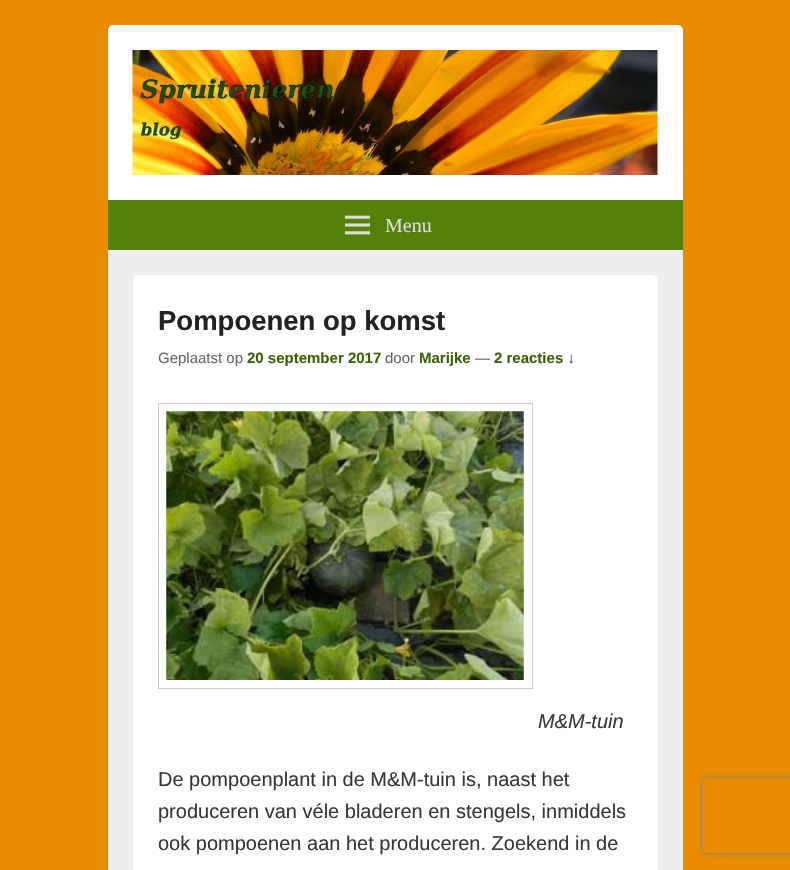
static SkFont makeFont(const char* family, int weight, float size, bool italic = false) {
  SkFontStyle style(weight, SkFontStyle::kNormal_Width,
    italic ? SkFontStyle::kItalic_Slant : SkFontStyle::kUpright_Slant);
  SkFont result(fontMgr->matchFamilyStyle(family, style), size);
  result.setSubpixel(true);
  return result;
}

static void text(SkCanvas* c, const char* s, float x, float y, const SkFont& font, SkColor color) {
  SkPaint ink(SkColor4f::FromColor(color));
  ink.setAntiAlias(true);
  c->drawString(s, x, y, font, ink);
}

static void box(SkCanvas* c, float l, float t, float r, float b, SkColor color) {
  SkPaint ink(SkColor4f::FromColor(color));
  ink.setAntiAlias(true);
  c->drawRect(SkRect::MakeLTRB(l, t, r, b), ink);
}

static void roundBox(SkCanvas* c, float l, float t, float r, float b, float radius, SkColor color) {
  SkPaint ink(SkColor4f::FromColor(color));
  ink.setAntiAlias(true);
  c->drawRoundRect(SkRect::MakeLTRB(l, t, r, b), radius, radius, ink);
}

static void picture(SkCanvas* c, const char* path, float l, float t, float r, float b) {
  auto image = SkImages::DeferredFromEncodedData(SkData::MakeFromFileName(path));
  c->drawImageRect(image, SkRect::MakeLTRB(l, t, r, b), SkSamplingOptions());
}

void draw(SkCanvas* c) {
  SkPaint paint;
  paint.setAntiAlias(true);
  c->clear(0xffea8c00);
  roundBox(c, 108, 25, 683, 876, 6, 0xffeeeeee);
  paint.setColor(0xffffffff);
  c->drawPath(SkPathBuilder().moveTo(114, 25).lineTo(677, 25).cubicTo(680.5f, 25, 683, 27.5f, 683, 31).lineTo(683, 250).lineTo(108, 250).lineTo(108, 31).cubicTo(108, 27.5f, 110.5f, 25, 114, 25).close().detach(), paint);
  picture(c, "img_01.png", 132, 50, 658, 175);
  box(c, 108, 200, 683, 250, 0xff53810a);
  picture(c, "img_02.png", 345, 215, 370, 235);
  SkFont face1 = makeFont("Liberation Serif", 400, 20);
  text(c, "Menu", 385, 232, face1, 0xffdddddd);
  roundBox(c, 133, 275, 658, 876, 6, 0xffffffff);
  SkFont face2 = makeFont("Liberation Sans", 700, 27.5f);
  text(c, "Pompoenen op komst", 158, 330, face2, 0xff222222);
  SkFont face3 = makeFont("Liberation Sans", 400, 15);
  text(c, "Geplaatst op", 158, 363, face3, 0xff666666);
  SkFont face4 = makeFont("Liberation Sans", 700, 15);
  text(c, "20 september 2017", 247, 363, face4, 0xff3e6107);
  text(c, "door", 385, 363, face3, 0xff666666);
  text(c, "Marijke", 419, 363, face4, 0xff3e6107);
  text(c, "—", 475, 363, face3, 0xff666666);
  text(c, "2 reacties ↓", 494, 363, face4, 0xff3e6107);
  paint.setStyle(SkPaint::kStroke_Style);
  paint.setStrokeWidth(1);
  paint.setColor(0xffcccccc);
  c->drawRect(SkRect::MakeLTRB(158.5f, 403.5f, 532.5f, 688.5f), paint);
  picture(c, "img_03.png", 166, 411, 524, 680);
  SkFont face5 = makeFont("Liberation Sans", 400, 20, true);
  text(c, "M&M-tuin", 538, 728, face5, 0xff373737);
  SkFont face6 = makeFont("Liberation Sans", 400, 20);
  text(c, "De pompoenplant in de M&M-tuin is, naast het", 158, 786, face6, 0xff373737);
  text(c, "produceren van véle bladeren en stengels, inmiddels", 158, 818, face6, 0xff373737);
  text(c, "ook pompoenen aan het produceren. Zoekend in de", 158, 850, face6, 0xff373737);
  c->save();
  c->clipPath(SkPathBuilder(SkPathFillType::kEvenOdd).moveTo(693, 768).lineTo(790, 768).lineTo(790, 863).lineTo(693, 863).close().moveTo(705.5f, 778).lineTo(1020.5f, 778).cubicTo(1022, 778, 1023, 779, 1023, 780.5f).lineTo(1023, 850.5f).cubicTo(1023, 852, 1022, 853, 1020.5f, 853).lineTo(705.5f, 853).cubicTo(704, 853, 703, 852, 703, 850.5f).lineTo(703, 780.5f).cubicTo(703, 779, 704, 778, 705.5f, 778).close().detach(), true);
  paint.setStyle(SkPaint::kFill_Style);
  paint.setColor(0xff808080);
  paint.setMaskFilter(SkMaskFilter::MakeBlur(kNormal_SkBlurStyle, 3));
  c->drawRoundRect(SkRect::MakeLTRB(703, 778, 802, 853), 2.5f, 2.5f, paint);
  paint.setMaskFilter(nullptr);
  c->restore();
}
